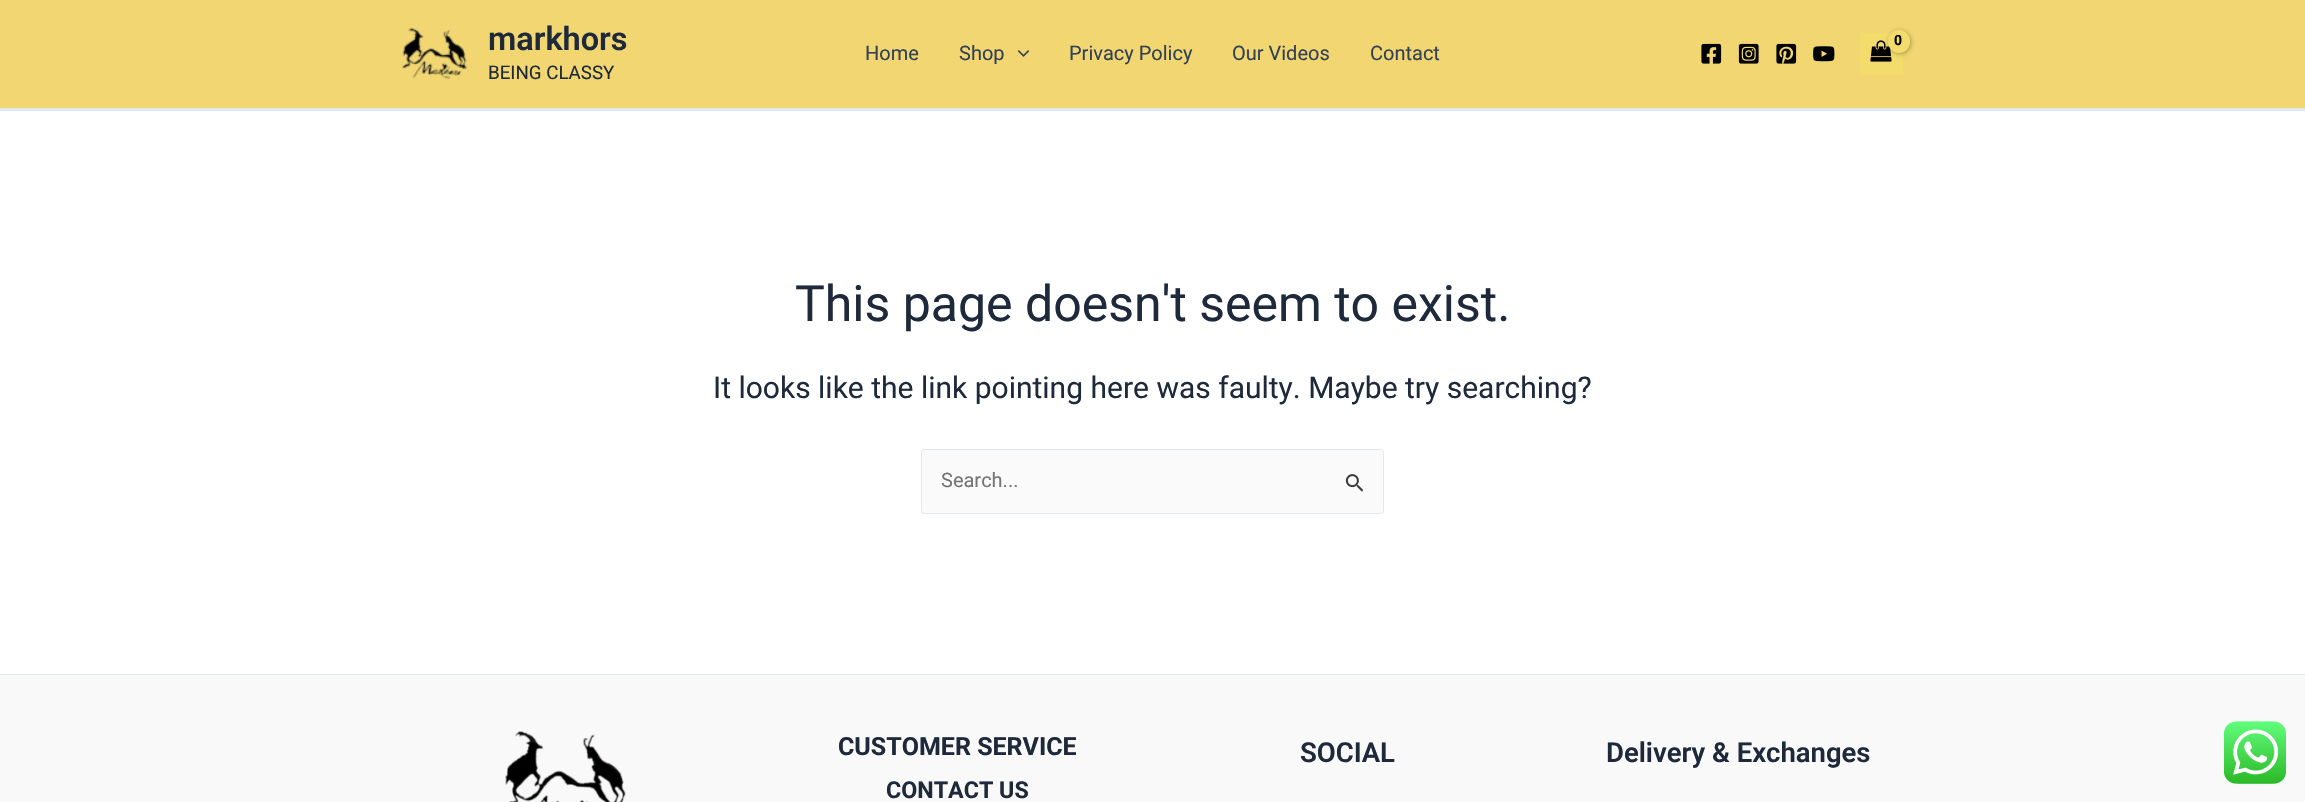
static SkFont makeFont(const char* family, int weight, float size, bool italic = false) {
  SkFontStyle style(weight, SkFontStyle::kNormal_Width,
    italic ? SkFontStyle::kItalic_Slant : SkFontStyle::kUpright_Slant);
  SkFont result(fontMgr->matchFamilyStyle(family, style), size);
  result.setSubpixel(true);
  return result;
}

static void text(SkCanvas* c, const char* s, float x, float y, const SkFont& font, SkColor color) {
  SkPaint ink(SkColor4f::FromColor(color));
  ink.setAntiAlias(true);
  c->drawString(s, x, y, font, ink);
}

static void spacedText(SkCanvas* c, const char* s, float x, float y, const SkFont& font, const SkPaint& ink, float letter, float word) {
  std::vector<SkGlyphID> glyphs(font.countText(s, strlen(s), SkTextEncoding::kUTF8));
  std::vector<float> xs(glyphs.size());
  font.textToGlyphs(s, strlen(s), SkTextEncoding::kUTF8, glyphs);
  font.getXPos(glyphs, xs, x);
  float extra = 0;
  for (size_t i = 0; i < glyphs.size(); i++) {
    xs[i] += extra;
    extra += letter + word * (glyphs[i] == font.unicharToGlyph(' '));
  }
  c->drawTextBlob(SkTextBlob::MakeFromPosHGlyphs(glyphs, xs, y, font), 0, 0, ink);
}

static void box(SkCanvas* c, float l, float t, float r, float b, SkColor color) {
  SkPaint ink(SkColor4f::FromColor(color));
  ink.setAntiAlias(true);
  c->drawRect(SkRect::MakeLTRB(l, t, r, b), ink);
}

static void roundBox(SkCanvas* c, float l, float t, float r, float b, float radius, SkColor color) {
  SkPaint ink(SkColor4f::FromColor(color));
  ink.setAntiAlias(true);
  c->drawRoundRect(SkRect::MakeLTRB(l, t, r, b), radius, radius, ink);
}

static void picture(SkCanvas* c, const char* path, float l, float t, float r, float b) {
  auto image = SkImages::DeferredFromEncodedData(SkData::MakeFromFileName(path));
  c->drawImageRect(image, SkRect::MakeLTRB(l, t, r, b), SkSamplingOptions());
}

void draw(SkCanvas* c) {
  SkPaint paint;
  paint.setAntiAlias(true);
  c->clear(0xffffffff);
  box(c, 0, 0, 2305, 108, 0xfff1d671);
  box(c, 0, 108, 2305, 111, 0xffe2e8f0);
  picture(c, "img_01.png", 402, 27, 468, 79);
  SkFont face1 = makeFont("Roboto", 600, 32.5f);
  text(c, "markhors", 488, 50, face1, 0xff1e293b);
  SkFont face2 = makeFont("Roboto", 400, 18.75f);
  text(c, "BEING CLASSY", 488, 79, face2, 0xff1e293b);
  box(c, 1860, 33, 1903, 75, 0xfff3db6c);
  picture(c, "img_02.png", 1870, 40, 1892, 62);
  paint.setColor(0x4d000000);
  paint.setMaskFilter(SkMaskFilter::MakeBlur(kNormal_SkBlurStyle, 2));
  c->drawRoundRect(SkRect::MakeLTRB(1889, 31, 1911, 54), 11, 11, paint);
  paint.setMaskFilter(nullptr);
  roundBox(c, 1888, 30, 1910, 53, 11, 0xfff3db6c);
  SkFont face3 = makeFont("Roboto", 700, 14);
  paint.setColor(0xff000000);
  spacedText(c, "0", 1894, 45, face3, paint, -1, 0);
  picture(c, "img_03.png", 1701, 43, 1722, 64);
  picture(c, "img_04.png", 1738, 43, 1759, 64);
  picture(c, "img_05.png", 1776, 43, 1797, 64);
  picture(c, "img_06.png", 1813, 46, 1835, 62);
  SkFont face4 = makeFont("Roboto", 400, 20);
  text(c, "Home", 865, 60, face4, 0xff334155);
  text(c, "Shop", 959, 60, face4, 0xff334155);
  picture(c, "img_07.png", 1018, 50, 1029, 57);
  text(c, "Privacy Policy", 1069, 60, face4, 0xff334155);
  text(c, "Our Videos", 1232, 60, face4, 0xff334155);
  text(c, "Contact", 1370, 60, face4, 0xff334155);
  SkFont face5 = makeFont("Roboto", 400, 50);
  text(c, "This page doesn't seem to exist.", 795, 321, face5, 0xff1e293b);
  SkFont face6 = makeFont("Roboto", 400, 30);
  text(c, "It looks like the link pointing here was faulty. Maybe try searching?", 713, 398, face6, 0xff1e293b);
  paint.setColor(0xfffafafa);
  c->drawRoundRect(SkRect::MakeLTRB(921.5f, 449.5f, 1383.5f, 513.5f), 2, 2, paint);
  paint.setStyle(SkPaint::kStroke_Style);
  paint.setStrokeWidth(1);
  paint.setColor(0xffe2e8f0);
  c->drawRoundRect(SkRect::MakeLTRB(921.5f, 449.5f, 1383.5f, 513.5f), 2, 2, paint);
  text(c, "Search...", 941, 487, face4, 0xff757575);
  picture(c, "img_08.png", 1345, 474, 1363, 492);
  box(c, 0, 675, 2305, 802, 0xfff9f9f9);
  box(c, 0, 674, 2305, 675, 0xffe2e8f0);
  picture(c, "img_09.png", 505, 731, 626, 802);
  SkFont face7 = makeFont("Roboto", 700, 25);
  text(c, "CUSTOMER SERVICE", 838, 755, face7, 0xff1e293b);
  SkFont face8 = makeFont("Roboto", 700, 23.25f);
  text(c, "CONTACT US", 886, 798, face8, 0xff1e293b);
  SkFont face9 = makeFont("Roboto", 600, 27.5f);
  text(c, "SOCIAL", 1300, 762, face9, 0xff1e293b);
  text(c, "Delivery & Exchanges", 1606, 762, face9, 0xff1e293b);
  picture(c, "img_10.png", 2224, 721, 2286, 784);
}
